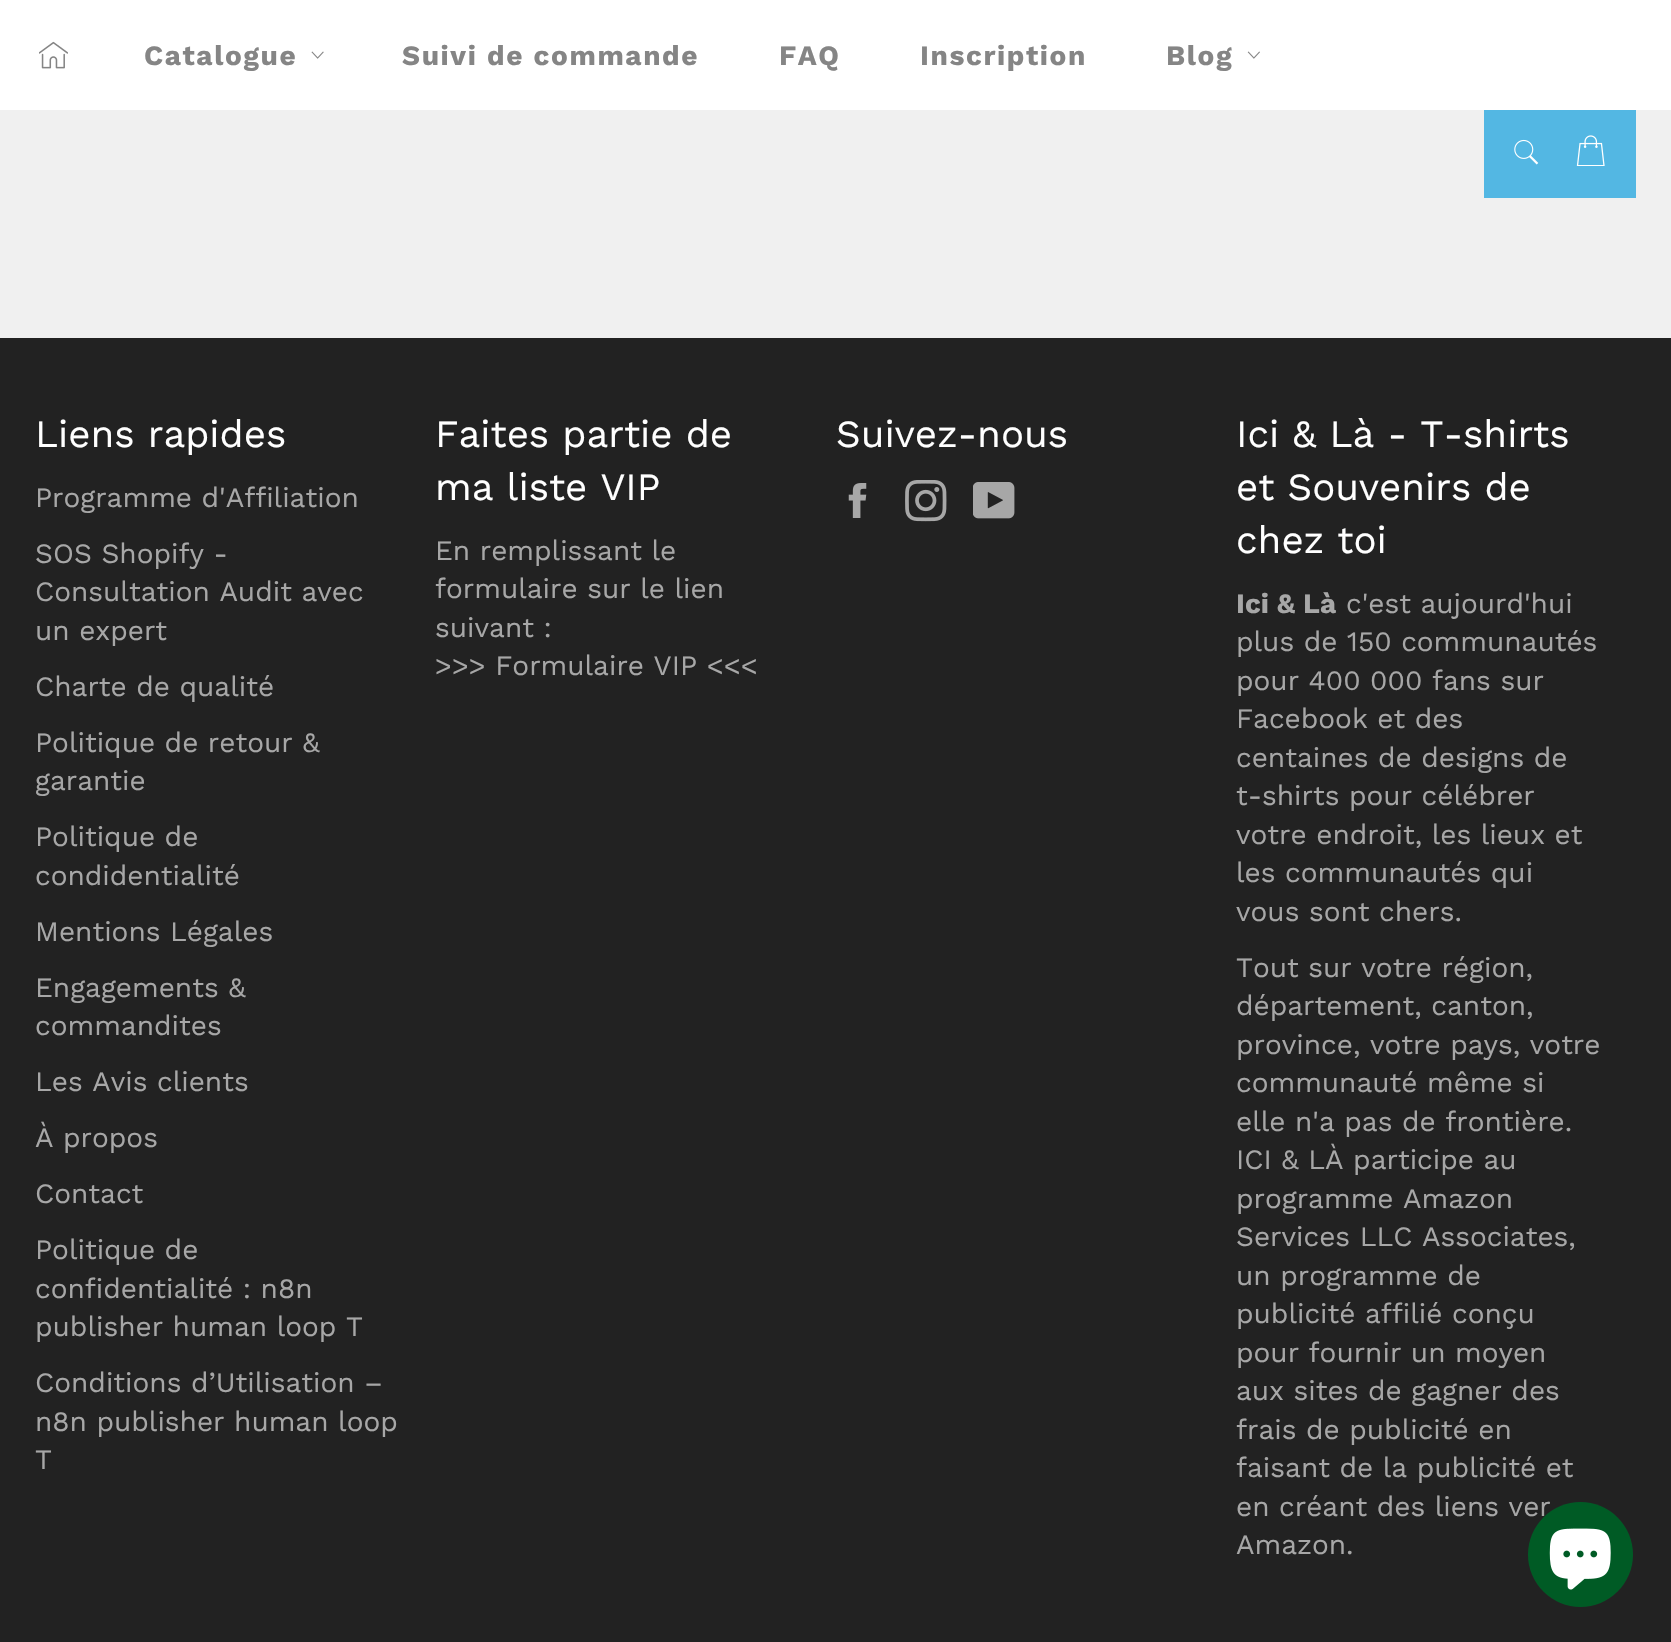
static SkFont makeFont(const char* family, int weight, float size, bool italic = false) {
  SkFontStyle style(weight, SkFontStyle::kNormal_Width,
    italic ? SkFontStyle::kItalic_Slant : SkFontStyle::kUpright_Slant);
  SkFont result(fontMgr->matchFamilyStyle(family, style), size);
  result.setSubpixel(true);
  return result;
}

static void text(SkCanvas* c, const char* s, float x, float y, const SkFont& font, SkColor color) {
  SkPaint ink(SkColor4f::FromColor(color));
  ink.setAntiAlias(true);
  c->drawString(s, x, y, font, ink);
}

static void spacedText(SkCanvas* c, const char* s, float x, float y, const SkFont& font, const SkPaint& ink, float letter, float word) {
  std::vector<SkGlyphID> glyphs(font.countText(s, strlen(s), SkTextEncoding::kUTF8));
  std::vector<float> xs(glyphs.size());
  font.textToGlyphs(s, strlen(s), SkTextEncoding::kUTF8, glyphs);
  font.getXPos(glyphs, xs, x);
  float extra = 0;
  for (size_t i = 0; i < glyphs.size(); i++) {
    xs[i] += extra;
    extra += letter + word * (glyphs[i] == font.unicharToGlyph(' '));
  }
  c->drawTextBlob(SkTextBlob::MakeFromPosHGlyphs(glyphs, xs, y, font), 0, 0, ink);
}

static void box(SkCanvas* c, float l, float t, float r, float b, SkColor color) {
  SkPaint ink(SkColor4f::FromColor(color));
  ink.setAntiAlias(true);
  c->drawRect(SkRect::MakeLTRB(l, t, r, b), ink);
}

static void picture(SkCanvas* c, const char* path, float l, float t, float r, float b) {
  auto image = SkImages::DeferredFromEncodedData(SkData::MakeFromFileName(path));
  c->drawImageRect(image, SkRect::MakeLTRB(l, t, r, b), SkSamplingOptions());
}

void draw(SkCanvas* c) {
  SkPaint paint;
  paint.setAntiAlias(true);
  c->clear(0xfff0f0f0);
  box(c, 0, 0, 1671, 110, 0xffffffff);
  picture(c, "img_01.png", 39, 41, 68, 69);
  SkFont face1 = makeFont("Work Sans", 700, 28);
  paint.setColor(0xff858585);
  spacedText(c, "Catalogue", 144, 65, face1, paint, 1.6f, 0);
  picture(c, "img_02.png", 311, 51, 324, 59);
  spacedText(c, "Suivi de commande", 402, 65, face1, paint, 1.6f, 0);
  spacedText(c, "FAQ", 779, 65, face1, paint, 1.6f, 0);
  spacedText(c, "Inscription", 920, 65, face1, paint, 1.6f, 0);
  spacedText(c, "Blog", 1166, 65, face1, paint, 1.6f, 0);
  picture(c, "img_03.png", 1247, 51, 1260, 59);
  box(c, 1484, 110, 1636, 198, 0xff53b7e3);
  picture(c, "img_04.png", 1514, 139, 1539, 165);
  picture(c, "img_05.png", 1576, 135, 1605, 166);
  box(c, 0, 338, 1671, 1642, 0xff222222);
  SkFont face2 = makeFont("Work Sans", 400, 38.5f);
  text(c, "Liens rapides", 35, 447, face2, 0xffffffff);
  SkFont face3 = makeFont("Work Sans", 400, 28);
  text(c, "Programme d'Affiliation", 35, 507, face3, 0xffa7a7a7);
  text(c, "SOS Shopify -", 35, 563, face3, 0xffa7a7a7);
  text(c, "Consultation Audit avec", 35, 601, face3, 0xffa7a7a7);
  text(c, "un expert", 35, 640, face3, 0xffa7a7a7);
  text(c, "Charte de qualité", 35, 696, face3, 0xffa7a7a7);
  text(c, "Politique de retour &", 35, 752, face3, 0xffa7a7a7);
  text(c, "garantie", 35, 790, face3, 0xffa7a7a7);
  text(c, "Politique de", 35, 846, face3, 0xffa7a7a7);
  text(c, "condidentialité", 35, 885, face3, 0xffa7a7a7);
  text(c, "Mentions Légales", 35, 941, face3, 0xffa7a7a7);
  text(c, "Engagements &", 35, 997, face3, 0xffa7a7a7);
  text(c, "commandites", 35, 1035, face3, 0xffa7a7a7);
  text(c, "Les Avis clients", 35, 1091, face3, 0xffa7a7a7);
  text(c, "À propos", 35, 1147, face3, 0xffa7a7a7);
  text(c, "Contact", 35, 1203, face3, 0xffa7a7a7);
  text(c, "Politique de", 35, 1259, face3, 0xffa7a7a7);
  text(c, "confidentialité : n8n", 35, 1298, face3, 0xffa7a7a7);
  text(c, "publisher human loop T", 35, 1336, face3, 0xffa7a7a7);
  text(c, "Conditions d’Utilisation –", 35, 1392, face3, 0xffa7a7a7);
  text(c, "n8n publisher human loop", 35, 1431, face3, 0xffa7a7a7);
  text(c, "T", 35, 1469, face3, 0xffa7a7a7);
  text(c, "Faites partie de", 435, 447, face2, 0xffffffff);
  text(c, "ma liste VIP", 435, 500, face2, 0xffffffff);
  text(c, "En remplissant le", 435, 560, face3, 0xffa7a7a7);
  text(c, "formulaire sur le lien", 435, 598, face3, 0xffa7a7a7);
  text(c, "suivant :", 435, 637, face3, 0xffa7a7a7);
  text(c, ">>> Formulaire VIP <<<", 435, 675, face3, 0xffa7a7a7);
  text(c, "Suivez-nous", 836, 447, face2, 0xffffffff);
  picture(c, "img_06.png", 848, 483, 867, 518);
  picture(c, "img_07.png", 905, 480, 947, 522);
  picture(c, "img_08.png", 973, 482, 1015, 519);
  text(c, "Ici & Là - T-shirts", 1236, 447, face2, 0xffffffff);
  text(c, "et Souvenirs de", 1236, 500, face2, 0xffffffff);
  text(c, "chez toi", 1236, 553, face2, 0xffffffff);
  text(c, "Ici & Là", 1236, 613, face1, 0xffa7a7a7);
  text(c, "c'est aujourd'hui", 1346, 613, face3, 0xffa7a7a7);
  text(c, "plus de 150 communautés", 1236, 651, face3, 0xffa7a7a7);
  text(c, "pour 400 000 fans sur", 1236, 690, face3, 0xffa7a7a7);
  text(c, "Facebook et des", 1236, 728, face3, 0xffa7a7a7);
  text(c, "centaines de designs de", 1236, 767, face3, 0xffa7a7a7);
  text(c, "t-shirts pour célébrer", 1236, 805, face3, 0xffa7a7a7);
  text(c, "votre endroit, les lieux et", 1236, 844, face3, 0xffa7a7a7);
  text(c, "les communautés qui", 1236, 882, face3, 0xffa7a7a7);
  text(c, "vous sont chers.", 1236, 921, face3, 0xffa7a7a7);
  text(c, "Tout sur votre région,", 1236, 977, face3, 0xffa7a7a7);
  text(c, "département, canton,", 1236, 1015, face3, 0xffa7a7a7);
  text(c, "province, votre pays, votre", 1236, 1054, face3, 0xffa7a7a7);
  text(c, "communauté même si", 1236, 1092, face3, 0xffa7a7a7);
  text(c, "elle n'a pas de frontière.", 1236, 1131, face3, 0xffa7a7a7);
  text(c, "ICI & LÀ participe au", 1236, 1169, face3, 0xffa7a7a7);
  text(c, "programme Amazon", 1236, 1208, face3, 0xffa7a7a7);
  text(c, "Services LLC Associates,", 1236, 1246, face3, 0xffa7a7a7);
  text(c, "un programme de", 1236, 1285, face3, 0xffa7a7a7);
  text(c, "publicité affilié conçu", 1236, 1323, face3, 0xffa7a7a7);
  text(c, "pour fournir un moyen", 1236, 1362, face3, 0xffa7a7a7);
  text(c, "aux sites de gagner des", 1236, 1400, face3, 0xffa7a7a7);
  text(c, "frais de publicité en", 1236, 1439, face3, 0xffa7a7a7);
  text(c, "faisant de la publicité et", 1236, 1477, face3, 0xffa7a7a7);
  text(c, "en créant des liens ver", 1236, 1516, face3, 0xffa7a7a7);
  text(c, "Amazon.", 1236, 1554, face3, 0xffa7a7a7);
  paint.setColor(0xff005b25);
  c->drawCircle(1580.5f, 1554.5f, 52.5f, paint);
  picture(c, "img_09.png", 1549, 1528, 1611, 1590);
}
